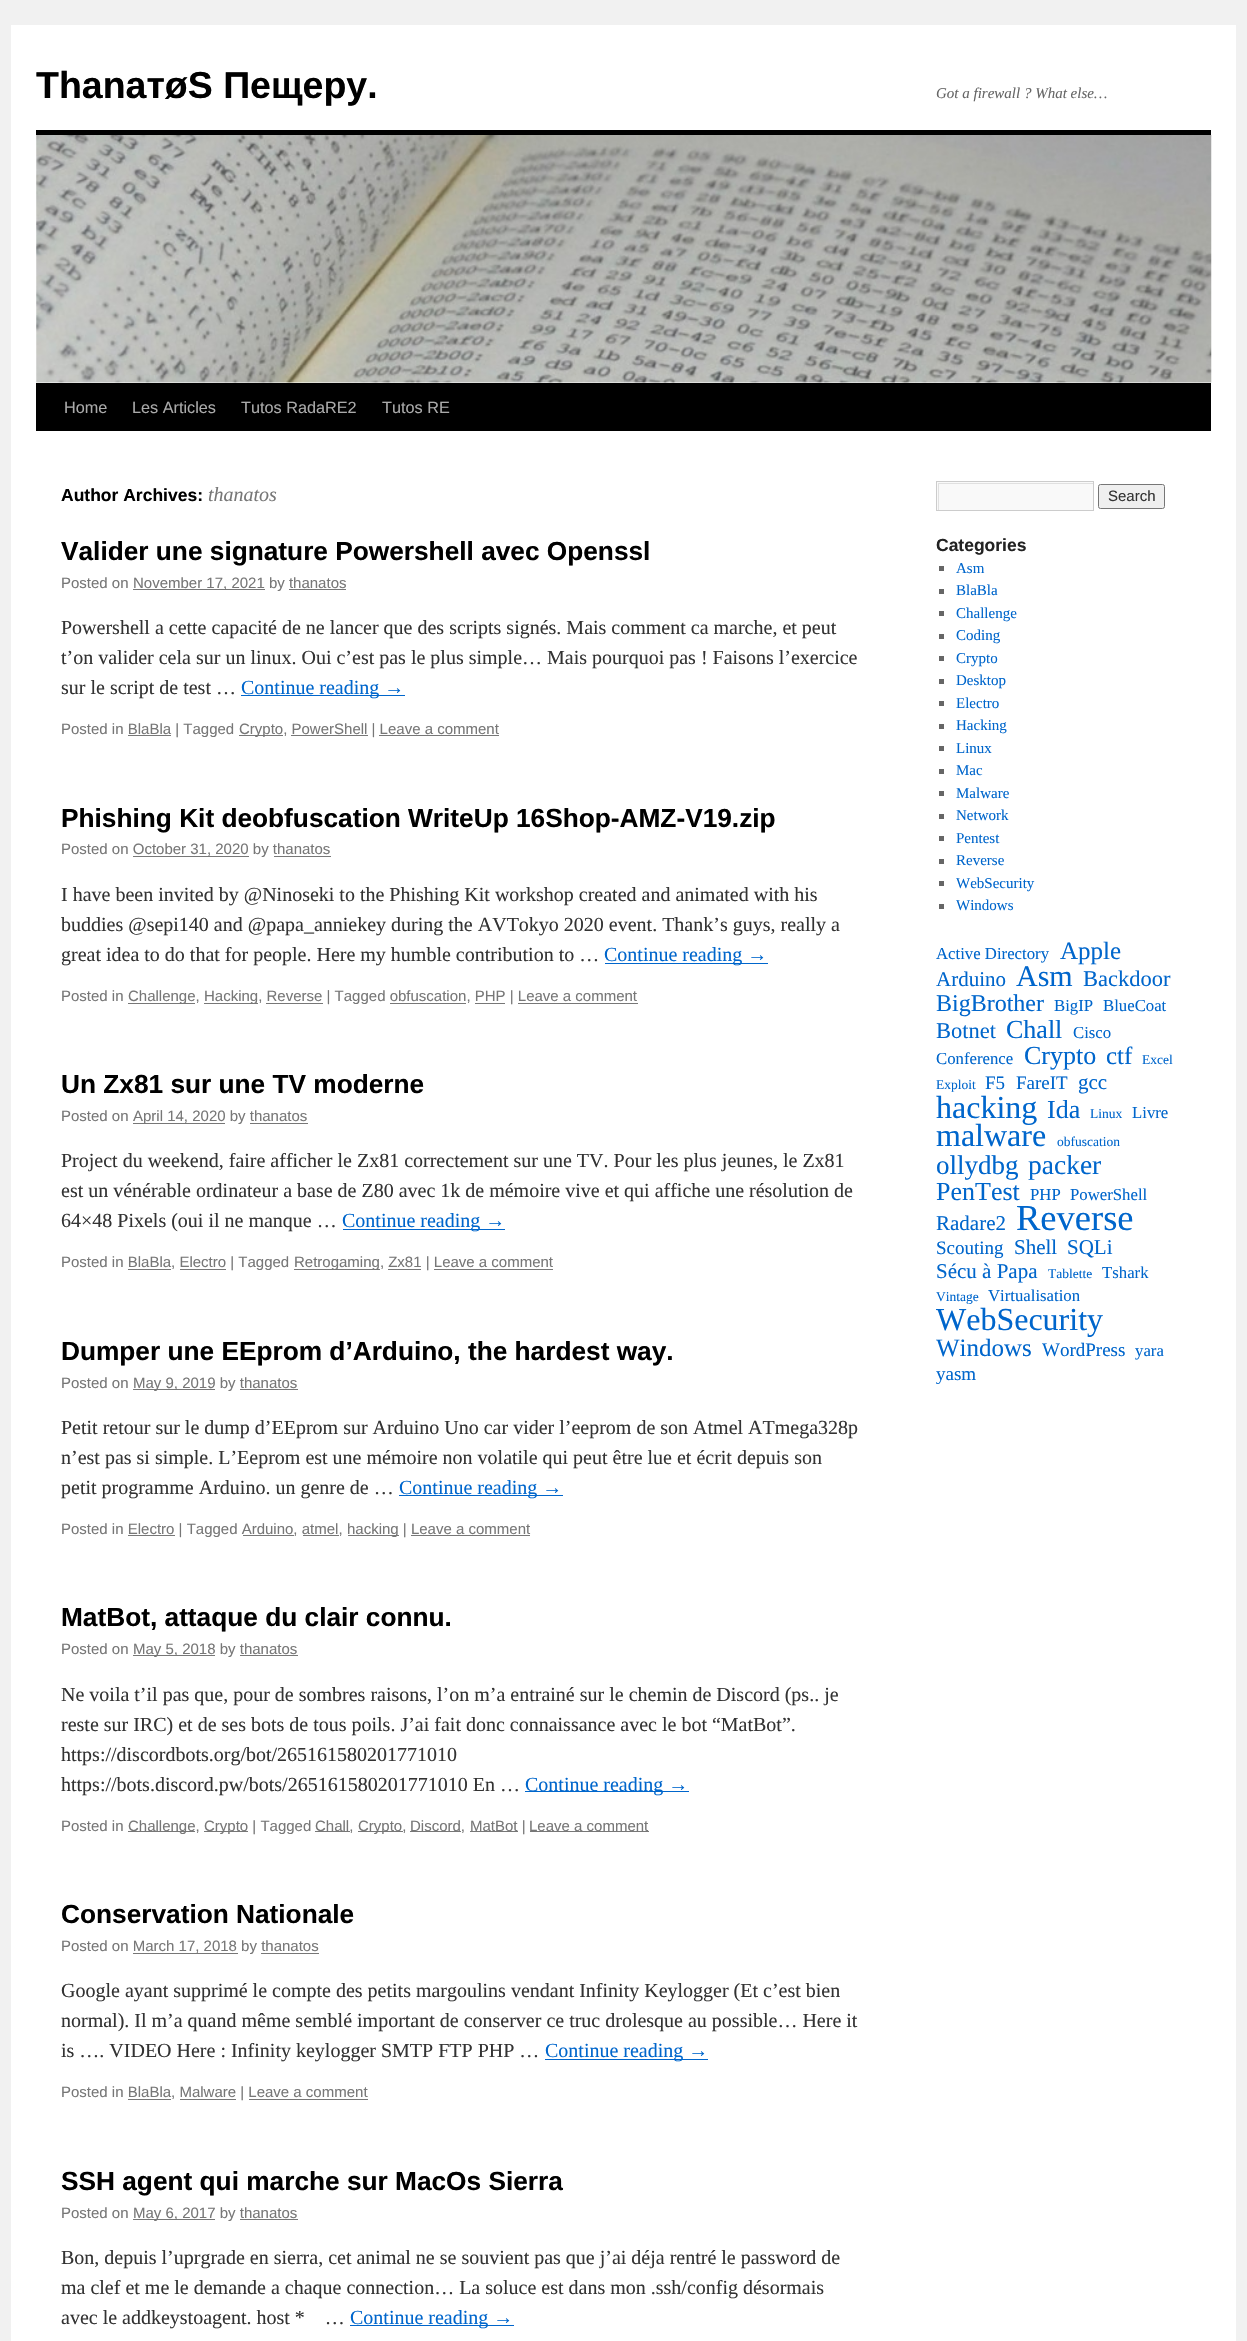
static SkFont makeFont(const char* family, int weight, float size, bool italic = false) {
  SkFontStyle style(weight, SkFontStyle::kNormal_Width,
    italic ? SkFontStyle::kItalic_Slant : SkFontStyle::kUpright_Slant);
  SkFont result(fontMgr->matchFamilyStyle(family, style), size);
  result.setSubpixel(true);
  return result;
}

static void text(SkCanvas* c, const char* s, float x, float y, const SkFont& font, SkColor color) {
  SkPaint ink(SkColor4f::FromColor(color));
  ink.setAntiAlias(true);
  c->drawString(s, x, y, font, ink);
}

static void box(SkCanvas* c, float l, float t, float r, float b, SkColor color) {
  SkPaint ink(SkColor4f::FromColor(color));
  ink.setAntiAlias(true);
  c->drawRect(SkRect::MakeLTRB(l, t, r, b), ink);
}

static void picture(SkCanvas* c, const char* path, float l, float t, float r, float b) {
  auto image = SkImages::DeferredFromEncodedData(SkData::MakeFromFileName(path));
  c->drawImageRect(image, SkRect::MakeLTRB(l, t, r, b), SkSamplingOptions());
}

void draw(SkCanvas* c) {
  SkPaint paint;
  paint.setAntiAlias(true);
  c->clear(0xfff1f1f1);
  box(c, 11, 25, 1236, 2341, 0xffffffff);
  SkFont face1 = makeFont("Liberation Sans", 700, 37.5f);
  text(c, "ThаnатøS Пещеру.", 36, 98, face1, 0xff000000);
  SkFont face2 = makeFont("Liberation Serif", 400, 15, true);
  text(c, "Got a firewall ? What else…", 936, 98, face2, 0xff666666);
  box(c, 36, 130, 1211, 135, 0xff000000);
  box(c, 36, 383, 1211, 431, 0xff000000);
  picture(c, "img_01.png", 36, 135, 1212, 383);
  SkFont face3 = makeFont("Liberation Sans", 400, 16.25f);
  text(c, "Home", 64, 413, face3, 0xffaaaaaa);
  text(c, "Les Articles", 132, 413, face3, 0xffaaaaaa);
  text(c, "Tutos RadaRE2", 241, 413, face3, 0xffaaaaaa);
  text(c, "Tutos RE", 382, 413, face3, 0xffaaaaaa);
  SkFont face4 = makeFont("Liberation Sans", 700, 17.5f);
  text(c, "Author Archives:", 61, 501, face4, 0xff000000);
  SkFont face5 = makeFont("Liberation Serif", 400, 20, true);
  text(c, "thanatos", 208, 501, face5, 0xff777777);
  SkFont face6 = makeFont("Liberation Sans", 700, 26.25f);
  text(c, "Valider une signature Powershell avec Openssl", 61, 560, face6, 0xff000000);
  SkFont face7 = makeFont("Liberation Sans", 400, 15);
  text(c, "Posted on", 61, 588, face7, 0xff777777);
  box(c, 133, 589, 265, 590, 0xff777777);
  text(c, "November 17, 2021 by thanatos", 133, 588, face7, 0xff777777);
  box(c, 289, 589, 346, 590, 0xff777777);
  SkFont face8 = makeFont("Liberation Serif", 400, 20);
  text(c, "Powershell a cette capacité de ne lancer que des scripts signés. Mais comment ca marche, et peut", 61, 634, face8, 0xff333333);
  text(c, "t’on valider cela sur un linux. Oui c’est pas le plus simple… Mais pourquoi pas ! Faisons l’exercice", 61, 664, face8, 0xff333333);
  text(c, "sur le script de test …", 61, 694, face8, 0xff333333);
  box(c, 241, 695, 405, 696, 0xff0066cc);
  text(c, "Continue reading →", 241, 694, face8, 0xff0066cc);
  text(c, "Posted in BlaBla | Tagged", 61, 734, face7, 0xff777777);
  box(c, 128, 735, 171, 736, 0xff777777);
  box(c, 239, 735, 283, 736, 0xff777777);
  text(c, "Crypto, PowerShell | Leave a comment", 239, 734, face7, 0xff777777);
  box(c, 291, 735, 368, 736, 0xff777777);
  box(c, 379, 735, 499, 736, 0xff777777);
  text(c, "Phishing Kit deobfuscation WriteUp 16Shop-AMZ-V19.zip", 61, 827, face6, 0xff000000);
  text(c, "Posted on October 31, 2020 by thanatos", 61, 854, face7, 0xff777777);
  box(c, 133, 856, 249, 857, 0xff777777);
  box(c, 274, 856, 331, 857, 0xff777777);
  text(c, "I have been invited by @Ninoseki to the Phishing Kit workshop created and animated with his", 61, 901, face8, 0xff333333);
  text(c, "buddies @sepi140 and @papa_anniekey during the AVTokyo 2020 event. Thank’s guys, really a", 61, 931, face8, 0xff333333);
  text(c, "great idea to do that for people. Here my humble contribution to …", 61, 961, face8, 0xff333333);
  box(c, 605, 963, 768, 964, 0xff0066cc);
  text(c, "Continue reading →", 604, 961, face8, 0xff0066cc);
  text(c, "Posted in", 61, 1001, face7, 0xff777777);
  box(c, 128, 1003, 195, 1004, 0xff777777);
  text(c, "Challenge,", 128, 1001, face7, 0xff777777);
  box(c, 204, 1003, 258, 1004, 0xff777777);
  text(c, "Hacking, Reverse | Tagged obfuscation, PHP | Leave a comment", 204, 1001, face7, 0xff777777);
  box(c, 266, 1003, 323, 1004, 0xff777777);
  box(c, 390, 1003, 466, 1004, 0xff777777);
  box(c, 475, 1003, 505, 1004, 0xff777777);
  box(c, 518, 1003, 638, 1004, 0xff777777);
  text(c, "Un Zx81 sur une TV moderne", 61, 1093, face6, 0xff000000);
  text(c, "Posted on", 61, 1121, face7, 0xff777777);
  box(c, 133, 1123, 225, 1124, 0xff777777);
  text(c, "April 14, 2020 by thanatos", 133, 1121, face7, 0xff777777);
  box(c, 250, 1123, 308, 1124, 0xff777777);
  text(c, "Project du weekend, faire afficher le Zx81 correctement sur une TV. Pour les plus jeunes, le Zx81", 61, 1167, face8, 0xff333333);
  text(c, "est un vénérable ordinateur a base de Z80 avec 1k de mémoire vive et qui affiche une résolution de", 61, 1197, face8, 0xff333333);
  text(c, "64×48 Pixels (oui il ne manque …", 61, 1227, face8, 0xff333333);
  box(c, 343, 1229, 505, 1230, 0xff0066cc);
  text(c, "Continue reading →", 342, 1227, face8, 0xff0066cc);
  text(c, "Posted in BlaBla, Electro | Tagged", 61, 1267, face7, 0xff777777);
  box(c, 128, 1269, 171, 1270, 0xff777777);
  box(c, 180, 1269, 226, 1270, 0xff777777);
  box(c, 294, 1269, 380, 1270, 0xff777777);
  text(c, "Retrogaming, Zx81 | Leave a comment", 294, 1267, face7, 0xff777777);
  box(c, 388, 1269, 421, 1270, 0xff777777);
  box(c, 434, 1269, 553, 1270, 0xff777777);
  text(c, "Dumper une EEprom d’Arduino, the hardest way.", 61, 1360, face6, 0xff000000);
  text(c, "Posted on", 61, 1388, face7, 0xff777777);
  box(c, 133, 1389, 215, 1390, 0xff777777);
  text(c, "May 9, 2019 by thanatos", 133, 1388, face7, 0xff777777);
  box(c, 240, 1389, 298, 1390, 0xff777777);
  text(c, "Petit retour sur le dump d’EEprom sur Arduino Uno car vider l’eeprom de son Atmel ATmega328p", 61, 1434, face8, 0xff333333);
  text(c, "n’est pas si simple. L’Eeprom est une mémoire non volatile qui peut être lue et écrit depuis son", 61, 1464, face8, 0xff333333);
  text(c, "petit programme Arduino. un genre de …", 61, 1494, face8, 0xff333333);
  box(c, 399, 1495, 563, 1496, 0xff0066cc);
  text(c, "Continue reading →", 399, 1494, face8, 0xff0066cc);
  text(c, "Posted in Electro | Tagged Arduino, atmel,", 61, 1534, face7, 0xff777777);
  box(c, 128, 1535, 175, 1536, 0xff777777);
  box(c, 348, 1535, 399, 1536, 0xff777777);
  text(c, "hacking | Leave a comment", 347, 1534, face7, 0xff777777);
  box(c, 243, 1535, 294, 1536, 0xff777777);
  box(c, 303, 1535, 339, 1536, 0xff777777);
  box(c, 411, 1535, 530, 1536, 0xff777777);
  text(c, "MatBot, attaque du clair connu.", 61, 1626, face6, 0xff000000);
  text(c, "Posted on", 61, 1654, face7, 0xff777777);
  box(c, 133, 1655, 215, 1656, 0xff777777);
  text(c, "May 5, 2018 by thanatos", 133, 1654, face7, 0xff777777);
  box(c, 240, 1655, 298, 1656, 0xff777777);
  text(c, "Ne voila t’il pas que, pour de sombres raisons, l’on m’a entrainé sur le chemin de Discord (ps.. je", 61, 1701, face8, 0xff333333);
  text(c, "reste sur IRC) et de ses bots de tous poils. J’ai fait donc connaissance avec le bot “MatBot”.", 61, 1731, face8, 0xff333333);
  text(c, "https://discordbots.org/bot/265161580201771010", 61, 1761, face8, 0xff333333);
  text(c, "https://bots.discord.pw/bots/265161580201771010 En …", 61, 1791, face8, 0xff333333);
  box(c, 525, 1791, 689, 1792, 0xff0066cc);
  text(c, "Continue reading →", 525, 1791, face8, 0xff0066cc);
  text(c, "Posted in", 61, 1831, face7, 0xff777777);
  box(c, 128, 1831, 195, 1832, 0xff777777);
  text(c, "Challenge,", 128, 1831, face7, 0xff777777);
  box(c, 204, 1831, 248, 1832, 0xff777777);
  text(c, "Crypto | Tagged", 204, 1831, face7, 0xff777777);
  box(c, 315, 1831, 350, 1832, 0xff777777);
  text(c, "Chall,", 315, 1831, face7, 0xff777777);
  box(c, 358, 1831, 403, 1832, 0xff777777);
  text(c, "Crypto,", 358, 1831, face7, 0xff777777);
  box(c, 410, 1831, 461, 1832, 0xff777777);
  text(c, "Discord,", 410, 1831, face7, 0xff777777);
  box(c, 470, 1831, 518, 1832, 0xff777777);
  text(c, "MatBot |", 470, 1831, face7, 0xff777777);
  box(c, 530, 1831, 649, 1832, 0xff777777);
  text(c, "Leave a comment", 529, 1831, face7, 0xff777777);
  text(c, "Conservation Nationale", 61, 1923, face6, 0xff000000);
  text(c, "Posted on March 17, 2018 by thanatos", 61, 1951, face7, 0xff777777);
  box(c, 133, 1953, 238, 1954, 0xff777777);
  box(c, 261, 1953, 319, 1954, 0xff777777);
  text(c, "Google ayant supprimé le compte des petits margoulins vendant Infinity Keylogger (Et c’est bien", 61, 1997, face8, 0xff333333);
  text(c, "normal). Il m’a quand même semblé important de conserver ce truc drolesque au possible… Here it", 61, 2027, face8, 0xff333333);
  text(c, "is …. VIDEO Here : Infinity keylogger SMTP FTP PHP …", 61, 2057, face8, 0xff333333);
  box(c, 545, 2059, 708, 2060, 0xff0066cc);
  text(c, "Continue reading →", 545, 2057, face8, 0xff0066cc);
  text(c, "Posted in BlaBla, Malware | Leave a comment", 61, 2097, face7, 0xff777777);
  box(c, 128, 2099, 171, 2100, 0xff777777);
  box(c, 180, 2099, 236, 2100, 0xff777777);
  box(c, 249, 2099, 368, 2100, 0xff777777);
  text(c, "SSH agent qui marche sur MacOs Sierra", 61, 2190, face6, 0xff000000);
  text(c, "Posted on", 61, 2218, face7, 0xff777777);
  box(c, 133, 2219, 215, 2220, 0xff777777);
  text(c, "May 6, 2017 by thanatos", 133, 2218, face7, 0xff777777);
  box(c, 240, 2219, 298, 2220, 0xff777777);
  text(c, "Bon, depuis l’uprgrade en sierra, cet animal ne se souvient pas que j’ai déja rentré le password de", 61, 2264, face8, 0xff333333);
  text(c, "ma clef et me le demande a chaque connection… La soluce est dans mon .ssh/config désormais", 61, 2294, face8, 0xff333333);
  text(c, "avec le addkeystoagent. host *    …", 61, 2324, face8, 0xff333333);
  box(c, 350, 2325, 514, 2326, 0xff0066cc);
  text(c, "Continue reading →", 350, 2324, face8, 0xff0066cc);
  box(c, 937, 482, 1093, 510, 0xfff9f9f9);
  c->save();
  c->clipRect(SkRect::MakeLTRB(938, 483, 1093, 510));
  paint.setColor(0xffe0e0e0);
  c->drawPath(SkPathBuilder(SkPathFillType::kEvenOdd).moveTo(814, 359).lineTo(1216, 359).lineTo(1216, 634).lineTo(814, 634).close().moveTo(939, 484).lineTo(1094, 484).lineTo(1094, 511).lineTo(939, 511).close().detach(), paint);
  c->restore();
  paint.setStyle(SkPaint::kStroke_Style);
  paint.setStrokeWidth(1);
  paint.setColor(0xffcccccc);
  c->drawRect(SkRect::MakeLTRB(936.5f, 481.5f, 1093.5f, 510.5f), paint);
  paint.setStyle(SkPaint::kFill_Style);
  paint.setColor(0xffefefef);
  c->drawRoundRect(SkRect::MakeLTRB(1098.5f, 484.5f, 1164.5f, 508.5f), 2, 2, paint);
  paint.setStyle(SkPaint::kStroke_Style);
  paint.setColor(0xff767676);
  c->drawRoundRect(SkRect::MakeLTRB(1098.5f, 484.5f, 1164.5f, 508.5f), 2, 2, paint);
  text(c, "Search", 1108, 501, face7, 0xff333333);
  text(c, "Categories", 936, 551, face4, 0xff222222);
  box(c, 939, 566, 944, 571, 0xff666666);
  SkFont face9 = makeFont("Liberation Serif", 400, 15);
  text(c, "Asm", 956, 573, face9, 0xff0066cc);
  box(c, 939, 589, 944, 594, 0xff666666);
  text(c, "BlaBla", 956, 595, face9, 0xff0066cc);
  box(c, 939, 611, 944, 616, 0xff666666);
  text(c, "Challenge", 956, 618, face9, 0xff0066cc);
  box(c, 939, 634, 944, 639, 0xff666666);
  text(c, "Coding", 956, 640, face9, 0xff0066cc);
  box(c, 939, 656, 944, 661, 0xff666666);
  text(c, "Crypto", 956, 663, face9, 0xff0066cc);
  box(c, 939, 679, 944, 684, 0xff666666);
  text(c, "Desktop", 956, 685, face9, 0xff0066cc);
  box(c, 939, 701, 944, 706, 0xff666666);
  text(c, "Electro", 956, 708, face9, 0xff0066cc);
  box(c, 939, 724, 944, 729, 0xff666666);
  text(c, "Hacking", 956, 730, face9, 0xff0066cc);
  box(c, 939, 746, 944, 751, 0xff666666);
  text(c, "Linux", 956, 753, face9, 0xff0066cc);
  box(c, 939, 769, 944, 774, 0xff666666);
  text(c, "Mac", 956, 775, face9, 0xff0066cc);
  box(c, 939, 791, 944, 796, 0xff666666);
  text(c, "Malware", 956, 798, face9, 0xff0066cc);
  box(c, 939, 814, 944, 819, 0xff666666);
  text(c, "Network", 956, 820, face9, 0xff0066cc);
  box(c, 939, 836, 944, 841, 0xff666666);
  text(c, "Pentest", 956, 843, face9, 0xff0066cc);
  box(c, 939, 859, 944, 864, 0xff666666);
  text(c, "Reverse", 956, 865, face9, 0xff0066cc);
  box(c, 939, 881, 944, 886, 0xff666666);
  text(c, "WebSecurity", 956, 888, face9, 0xff0066cc);
  box(c, 939, 904, 944, 909, 0xff666666);
  text(c, "Windows", 956, 910, face9, 0xff0066cc);
  SkFont face10 = makeFont("Liberation Serif", 400, 16.75f);
  text(c, "Active Directory", 936, 959, face10, 0xff0066cc);
  SkFont face11 = makeFont("Liberation Serif", 400, 25);
  text(c, "Apple", 1060, 959, face11, 0xff0066cc);
  SkFont face12 = makeFont("Liberation Serif", 400, 21);
  text(c, "Arduino", 936, 986, face12, 0xff0066cc);
  SkFont face13 = makeFont("Liberation Serif", 400, 30);
  text(c, "Asm", 1016, 986, face13, 0xff0066cc);
  SkFont face14 = makeFont("Liberation Serif", 400, 22.5f);
  text(c, "Backdoor", 1083, 986, face14, 0xff0066cc);
  SkFont face15 = makeFont("Liberation Serif", 400, 24);
  text(c, "BigBrother", 936, 1011, face15, 0xff0066cc);
  text(c, "BigIP", 1054, 1011, face10, 0xff0066cc);
  text(c, "BlueCoat", 1103, 1011, face10, 0xff0066cc);
  text(c, "Botnet", 936, 1038, face14, 0xff0066cc);
  SkFont face16 = makeFont("Liberation Serif", 400, 26);
  text(c, "Chall", 1006, 1038, face16, 0xff0066cc);
  text(c, "Cisco", 1073, 1038, face10, 0xff0066cc);
  text(c, "Conference", 936, 1064, face10, 0xff0066cc);
  text(c, "Crypto", 1024, 1064, face16, 0xff0066cc);
  text(c, "ctf", 1106, 1064, face11, 0xff0066cc);
  SkFont face17 = makeFont("Liberation Serif", 400, 13.5f);
  text(c, "Excel", 1142, 1064, face17, 0xff0066cc);
  text(c, "Exploit", 936, 1089, face17, 0xff0066cc);
  SkFont face18 = makeFont("Liberation Serif", 400, 19);
  text(c, "F5", 985, 1089, face18, 0xff0066cc);
  text(c, "FareIT", 1016, 1089, face18, 0xff0066cc);
  text(c, "gcc", 1078, 1089, face12, 0xff0066cc);
  SkFont face19 = makeFont("Liberation Serif", 400, 32);
  text(c, "hacking", 936, 1118, face19, 0xff0066cc);
  text(c, "Ida", 1047, 1118, face16, 0xff0066cc);
  text(c, "Linux", 1090, 1118, face17, 0xff0066cc);
  text(c, "Livre", 1132, 1118, face10, 0xff0066cc);
  text(c, "malware", 936, 1146, face19, 0xff0066cc);
  text(c, "obfuscation", 1057, 1146, face17, 0xff0066cc);
  SkFont face20 = makeFont("Liberation Serif", 400, 27);
  text(c, "ollydbg", 936, 1174, face20, 0xff0066cc);
  SkFont face21 = makeFont("Liberation Serif", 400, 27.5f);
  text(c, "packer", 1028, 1174, face21, 0xff0066cc);
  text(c, "PenTest", 936, 1200, face16, 0xff0066cc);
  text(c, "PHP", 1030, 1200, face10, 0xff0066cc);
  text(c, "PowerShell", 1070, 1200, face10, 0xff0066cc);
  text(c, "Radare2", 936, 1230, face12, 0xff0066cc);
  SkFont face22 = makeFont("Liberation Serif", 400, 36.5f);
  text(c, "Reverse", 1016, 1230, face22, 0xff0066cc);
  text(c, "Scouting", 936, 1254, face18, 0xff0066cc);
  text(c, "Shell", 1014, 1254, face12, 0xff0066cc);
  text(c, "SQLi", 1067, 1254, face12, 0xff0066cc);
  text(c, "Sécu à Papa", 936, 1278, face12, 0xff0066cc);
  text(c, "Tablette", 1048, 1278, face17, 0xff0066cc);
  text(c, "Tshark", 1102, 1278, face10, 0xff0066cc);
  text(c, "Vintage", 936, 1301, face17, 0xff0066cc);
  text(c, "Virtualisation", 988, 1301, face10, 0xff0066cc);
  text(c, "WebSecurity", 936, 1330, face19, 0xff0066cc);
  text(c, "Windows", 936, 1356, face11, 0xff0066cc);
  text(c, "WordPress", 1042, 1356, face18, 0xff0066cc);
  text(c, "yara", 1135, 1356, face10, 0xff0066cc);
  text(c, "yasm", 936, 1380, face18, 0xff0066cc);
}
